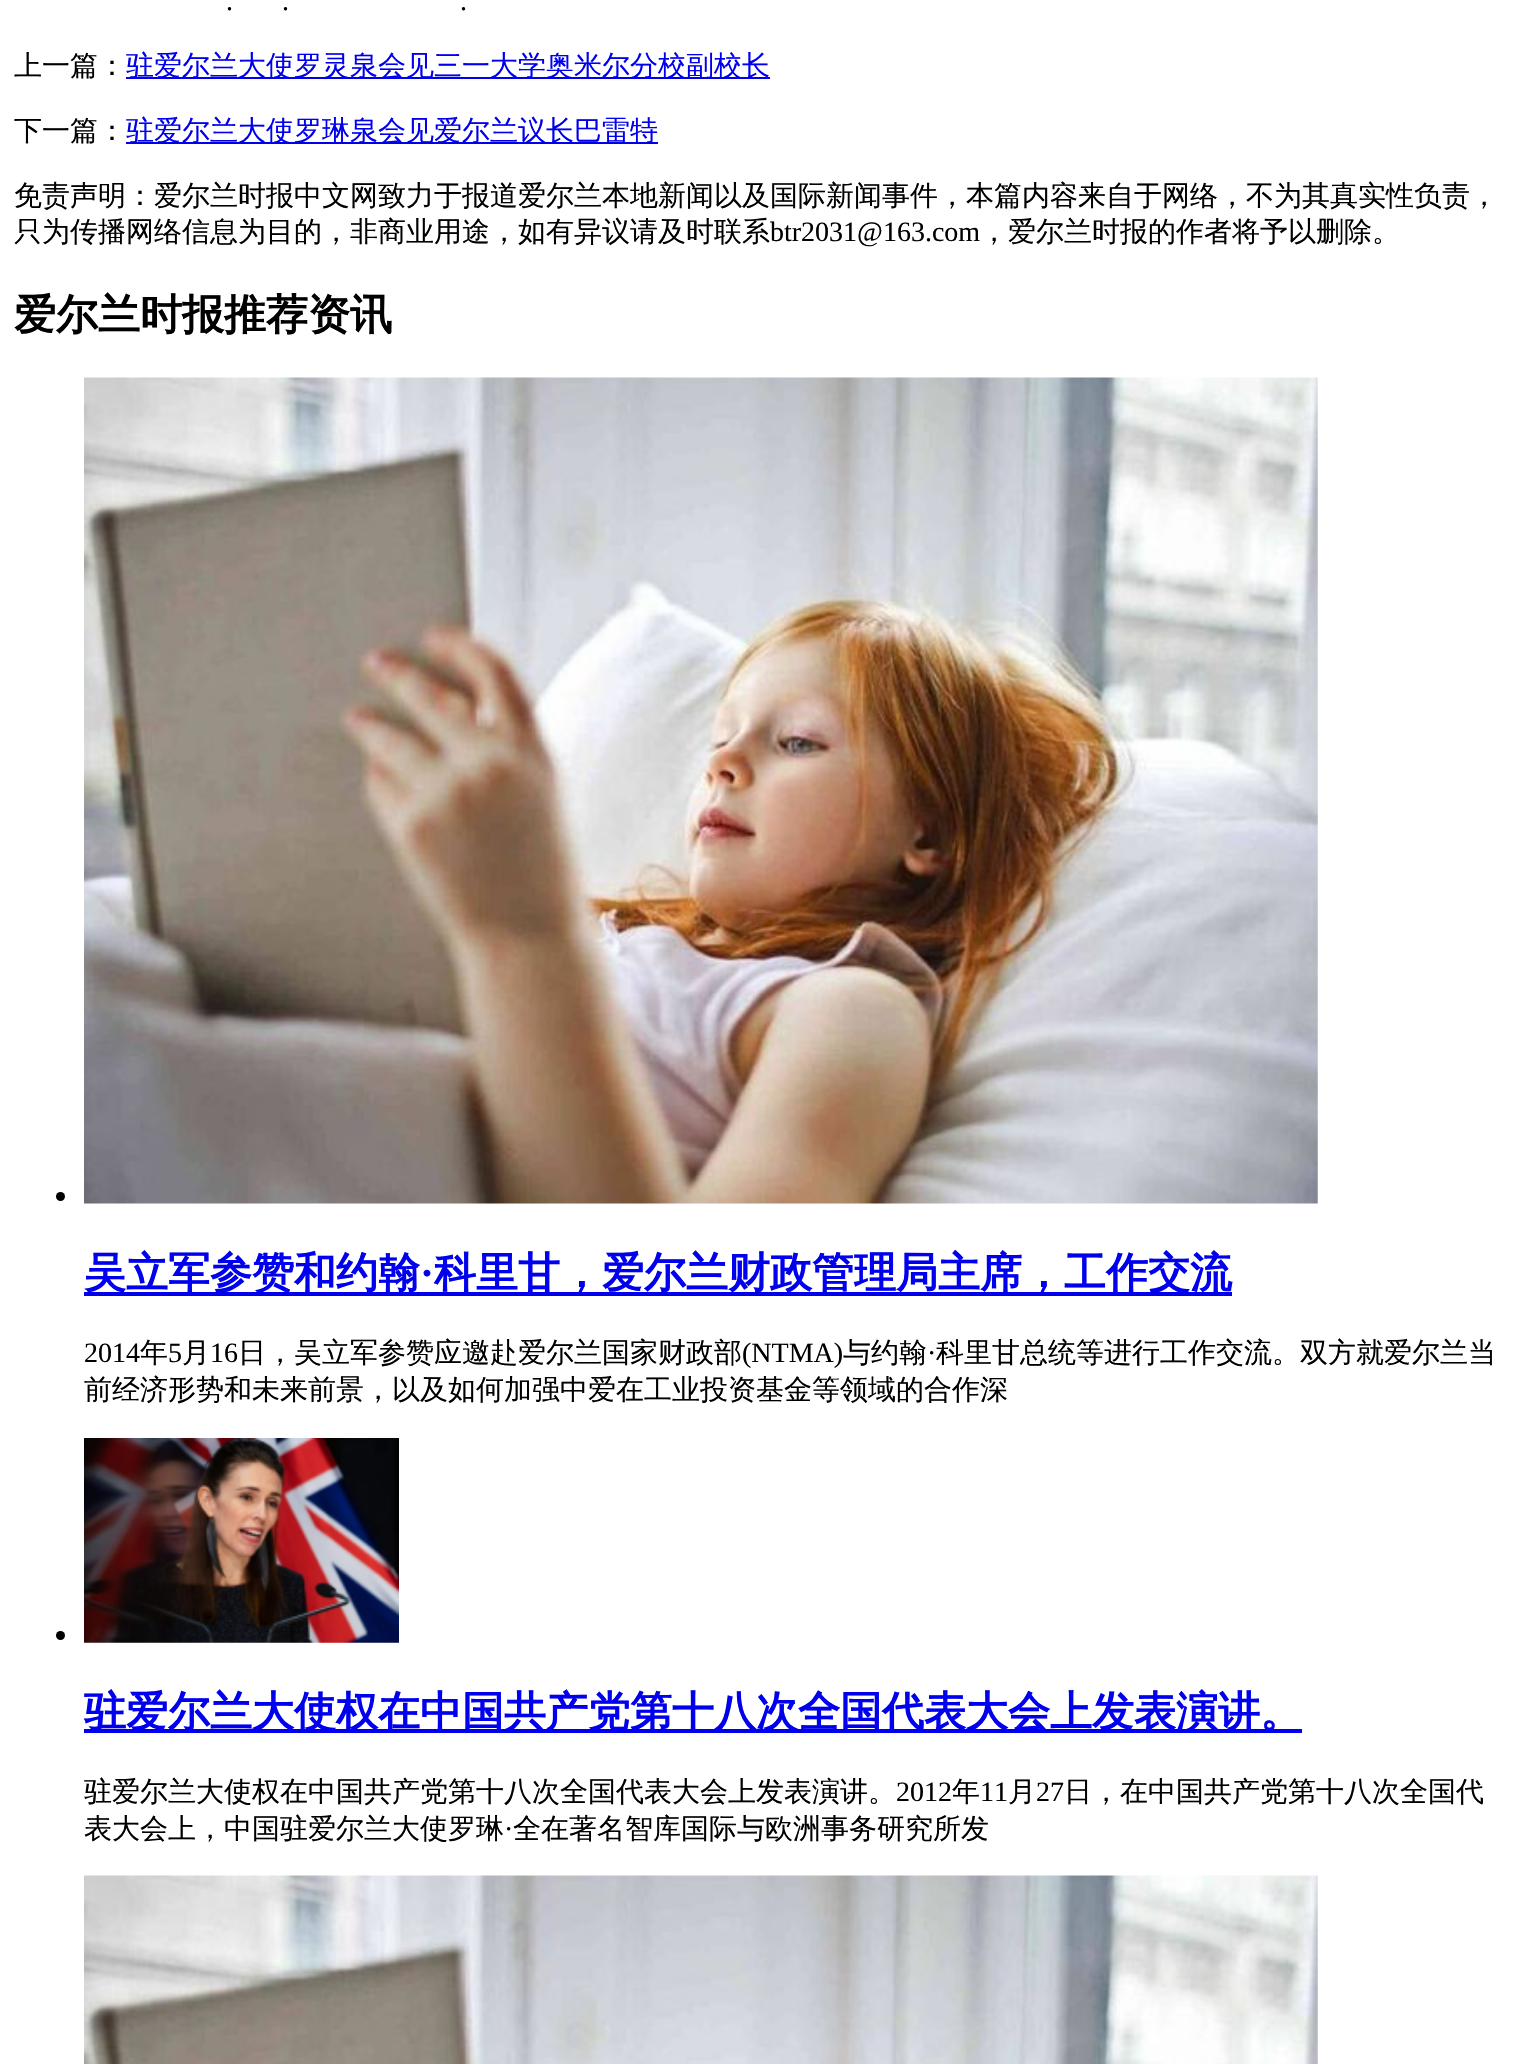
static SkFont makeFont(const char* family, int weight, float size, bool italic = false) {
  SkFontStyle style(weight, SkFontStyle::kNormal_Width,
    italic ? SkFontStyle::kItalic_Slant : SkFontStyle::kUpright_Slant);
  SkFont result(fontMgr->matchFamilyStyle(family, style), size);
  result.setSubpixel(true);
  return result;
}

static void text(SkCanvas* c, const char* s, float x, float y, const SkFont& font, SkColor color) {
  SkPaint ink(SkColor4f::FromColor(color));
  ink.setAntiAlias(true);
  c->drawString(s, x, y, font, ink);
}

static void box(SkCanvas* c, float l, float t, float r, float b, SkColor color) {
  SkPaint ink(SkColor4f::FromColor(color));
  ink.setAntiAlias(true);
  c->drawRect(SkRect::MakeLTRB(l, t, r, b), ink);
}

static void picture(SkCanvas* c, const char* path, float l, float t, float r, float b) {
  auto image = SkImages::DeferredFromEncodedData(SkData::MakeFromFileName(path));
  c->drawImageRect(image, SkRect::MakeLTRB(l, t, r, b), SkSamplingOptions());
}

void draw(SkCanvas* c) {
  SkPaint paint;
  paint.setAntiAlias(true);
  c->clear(0xffffffff);
  SkFont face1 = makeFont("Liberation Serif", 400, 28);
  text(c, ".", 226, 10, face1, 0xff000000);
  text(c, ".", 282, 10, face1, 0xff000000);
  text(c, ".", 460, 10, face1, 0xff000000);
  SkFont face2 = makeFont("WenQuanYi Zen Hei", 500, 28);
  text(c, "上一篇：", 14, 75, face2, 0xff000000);
  box(c, 126, 77, 770, 79, 0xff0000ee);
  text(c, "驻爱尔兰大使罗灵泉会见三一大学奥米尔分校副校长", 126, 75, face2, 0xff0000ee);
  text(c, "下一篇：", 14, 140, face2, 0xff000000);
  box(c, 126, 142, 658, 144, 0xff0000ee);
  text(c, "驻爱尔兰大使罗琳泉会见爱尔兰议长巴雷特", 126, 140, face2, 0xff0000ee);
  text(c, "免责声明：爱尔兰时报中文网致力于报道爱尔兰本地新闻以及国际新闻事件，本篇内容来自于网络，不为其真实性负责，", 14, 205, face2, 0xff000000);
  text(c, "只为传播网络信息为目的，非商业用途，如有异议请及时联系", 14, 241, face2, 0xff000000);
  text(c, "btr2031@163.com", 770, 241, face1, 0xff000000);
  text(c, "，爱尔兰时报的作者将予以删除。", 980, 241, face2, 0xff000000);
  SkFont face3 = makeFont("WenQuanYi Zen Hei", 700, 42);
  text(c, "爱尔兰时报推荐资讯", 14, 329, face3, 0xff000000);
  paint.setColor(0xff000000);
  c->drawCircle(60.5f, 1196.5f, 4.5f, paint);
  picture(c, "img_01.png", 84, 377, 1318, 1204);
  box(c, 84, 1292, 1232, 1296, 0xff0000ee);
  text(c, "吴立军参赞和约翰", 84, 1287, face3, 0xff0000ee);
  SkFont face4 = makeFont("Liberation Serif", 700, 42);
  text(c, "·", 420, 1287, face4, 0xff0000ee);
  text(c, "科里甘，爱尔兰财政管理局主席，工作交流", 434, 1287, face3, 0xff0000ee);
  text(c, "2014", 84, 1362, face1, 0xff000000);
  text(c, "年", 140, 1362, face2, 0xff000000);
  text(c, "5", 168, 1362, face1, 0xff000000);
  text(c, "月", 182, 1362, face2, 0xff000000);
  text(c, "16", 210, 1362, face1, 0xff000000);
  text(c, "日，吴立军参赞应邀赴爱尔兰国家财政部", 238, 1362, face2, 0xff000000);
  text(c, "(NTMA)", 742, 1362, face1, 0xff000000);
  text(c, "与约翰", 843, 1362, face2, 0xff000000);
  text(c, "·", 927, 1362, face1, 0xff000000);
  text(c, "科里甘总统等进行工作交流。双方就爱尔兰当", 936, 1362, face2, 0xff000000);
  text(c, "前经济形势和未来前景，以及如何加强中爱在工业投资基金等领域的合作深", 84, 1399, face2, 0xff000000);
  c->drawCircle(60.5f, 1635.5f, 4.5f, paint);
  picture(c, "img_02.png", 84, 1438, 399, 1643);
  box(c, 84, 1729, 1302, 1733, 0xff0000ee);
  text(c, "驻爱尔兰大使权在中国共产党第十八次全国代表大会上发表演讲。", 84, 1726, face3, 0xff0000ee);
  text(c, "驻爱尔兰大使权在中国共产党第十八次全国代表大会上发表演讲。", 84, 1801, face2, 0xff000000);
  text(c, "2012", 896, 1801, face1, 0xff000000);
  text(c, "年", 952, 1801, face2, 0xff000000);
  text(c, "11", 980, 1801, face1, 0xff000000);
  text(c, "月", 1008, 1801, face2, 0xff000000);
  text(c, "27", 1036, 1801, face1, 0xff000000);
  text(c, "日，在中国共产党第十八次全国代", 1064, 1801, face2, 0xff000000);
  text(c, "表大会上，中国驻爱尔兰大使罗琳", 84, 1838, face2, 0xff000000);
  text(c, "·", 504, 1838, face1, 0xff000000);
  text(c, "全在著名智库国际与欧洲事务研究所发", 513, 1838, face2, 0xff000000);
  picture(c, "img_03.png", 84, 1875, 1318, 2064);
}
